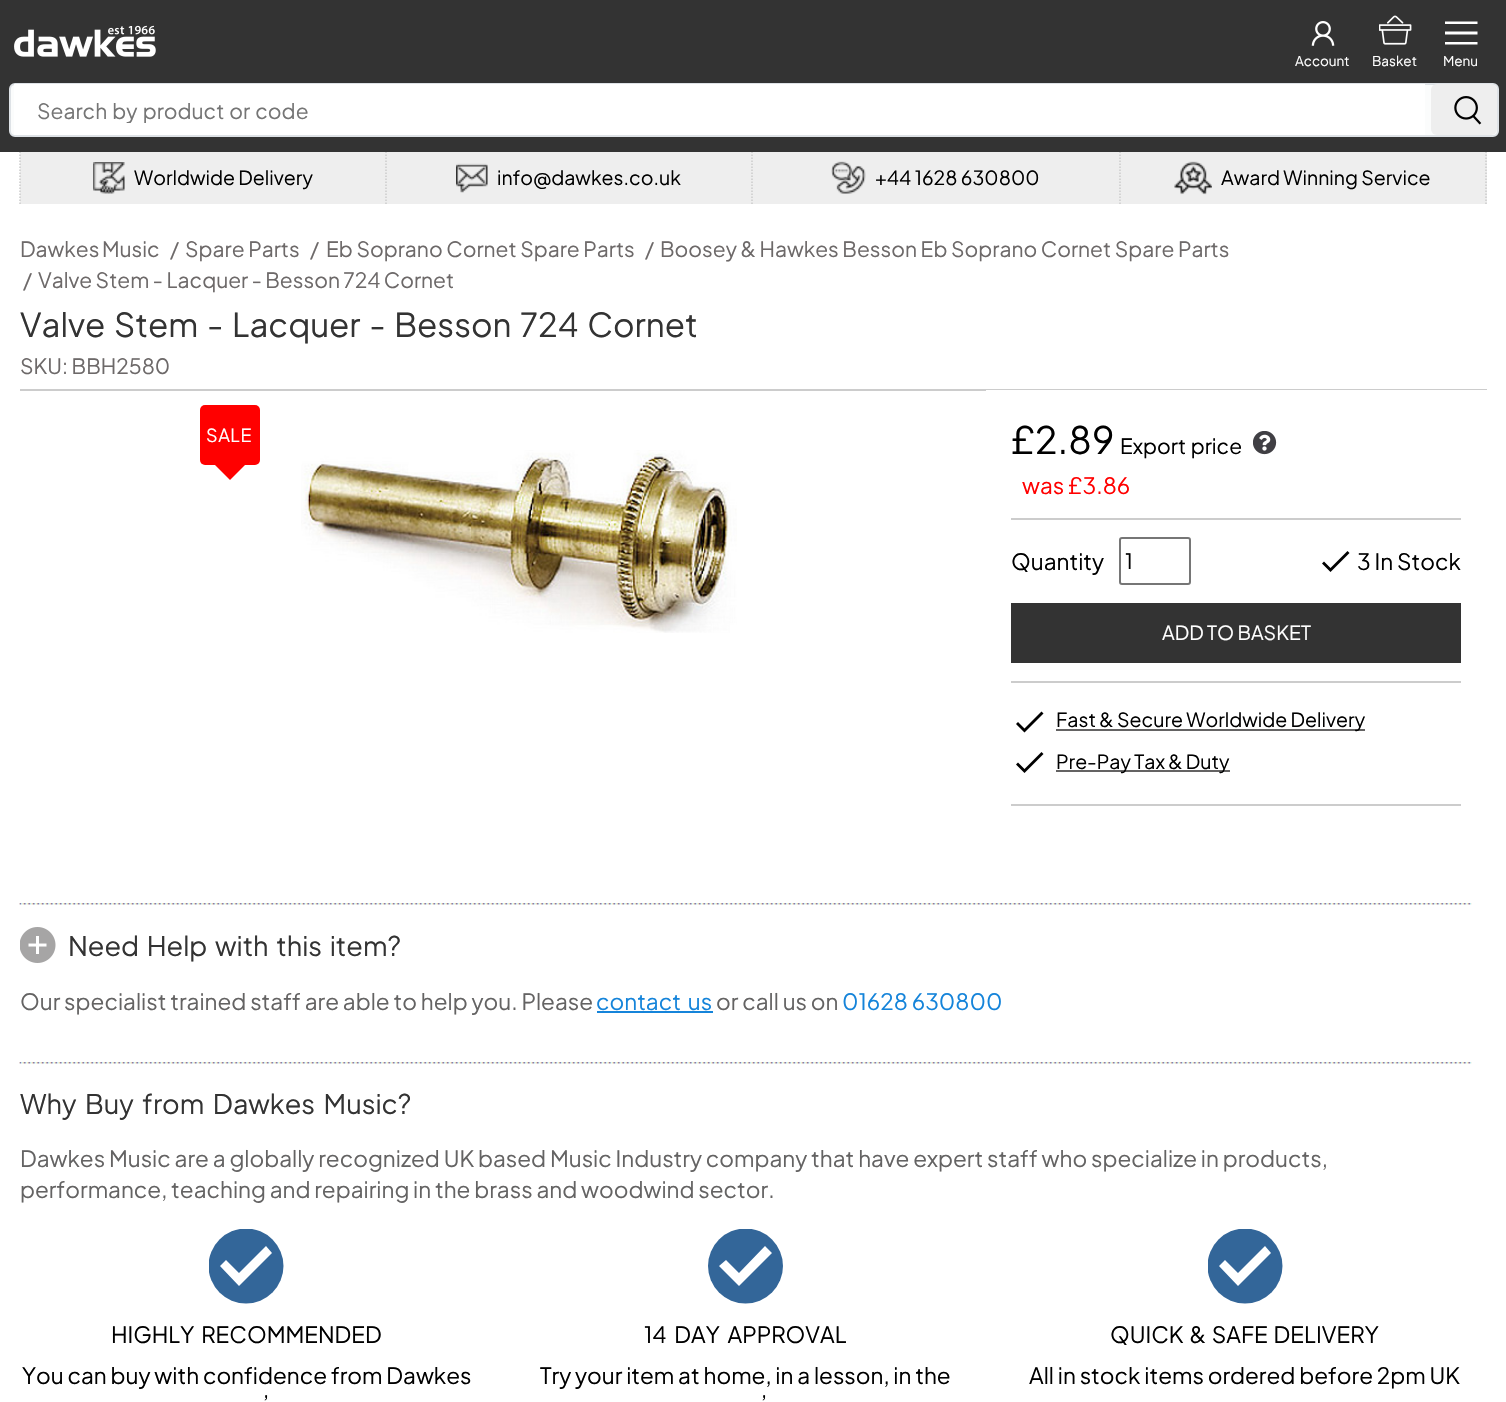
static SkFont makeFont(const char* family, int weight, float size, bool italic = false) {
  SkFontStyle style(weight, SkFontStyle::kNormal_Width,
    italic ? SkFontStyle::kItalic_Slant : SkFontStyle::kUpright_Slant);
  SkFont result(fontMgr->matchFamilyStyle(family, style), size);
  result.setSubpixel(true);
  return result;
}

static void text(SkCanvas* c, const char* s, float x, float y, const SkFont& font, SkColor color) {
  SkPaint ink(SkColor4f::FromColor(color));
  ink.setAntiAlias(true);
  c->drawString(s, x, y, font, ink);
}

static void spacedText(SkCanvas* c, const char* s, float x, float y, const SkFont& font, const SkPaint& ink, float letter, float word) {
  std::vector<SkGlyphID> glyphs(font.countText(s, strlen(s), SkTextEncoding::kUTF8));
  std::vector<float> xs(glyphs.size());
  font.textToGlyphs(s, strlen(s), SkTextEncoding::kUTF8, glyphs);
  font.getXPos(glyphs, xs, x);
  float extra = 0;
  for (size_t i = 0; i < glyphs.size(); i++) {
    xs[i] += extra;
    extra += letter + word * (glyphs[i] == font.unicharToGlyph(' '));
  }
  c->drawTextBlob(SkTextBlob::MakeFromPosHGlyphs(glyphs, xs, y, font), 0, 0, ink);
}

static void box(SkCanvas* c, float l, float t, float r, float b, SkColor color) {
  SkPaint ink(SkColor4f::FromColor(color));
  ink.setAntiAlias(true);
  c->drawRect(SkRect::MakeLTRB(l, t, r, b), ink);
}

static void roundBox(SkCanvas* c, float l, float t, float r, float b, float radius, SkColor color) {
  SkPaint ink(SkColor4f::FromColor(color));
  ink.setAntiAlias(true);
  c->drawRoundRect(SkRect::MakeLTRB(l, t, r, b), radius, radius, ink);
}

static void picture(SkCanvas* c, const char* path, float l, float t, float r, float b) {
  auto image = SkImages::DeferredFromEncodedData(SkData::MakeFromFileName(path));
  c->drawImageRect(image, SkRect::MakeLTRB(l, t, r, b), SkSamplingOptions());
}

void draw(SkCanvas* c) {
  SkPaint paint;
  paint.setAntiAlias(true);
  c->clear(0xffffffff);
  box(c, 0, 0, 1506, 71, 0xff333333);
  picture(c, "img_01.png", 14, 25, 156, 57);
  picture(c, "img_02.png", 1311, 21, 1335, 46);
  SkFont face1 = makeFont("Plus Jakarta Sans", 400, 13.5f);
  text(c, "Account", 1295, 66, face1, 0xffffffff);
  picture(c, "img_03.png", 1379, 15, 1412, 45);
  text(c, "Basket", 1372, 66, face1, 0xffffffff);
  c->save();
  c->clipRect(SkRect::MakeLTRB(1445, 17, 1478, 50));
  paint.setColor(0xffffffff);
  c->drawPath(SkPathBuilder().moveTo(1444.5f, 21.5f).lineTo(1444.5f, 24).lineTo(1477.5f, 24).lineTo(1477.5f, 21.5f).close().moveTo(1444.5f, 31.5f).lineTo(1444.5f, 34.5f).lineTo(1477.5f, 34.5f).lineTo(1477.5f, 31.5f).close().moveTo(1444.5f, 42).lineTo(1444.5f, 44.5f).lineTo(1477.5f, 44.5f).lineTo(1477.5f, 42).close().detach(), paint);
  c->restore();
  text(c, "Menu", 1443, 66, face1, 0xffffffff);
  box(c, 20, 152, 1487, 204, 0xffeeeeee);
  paint.setStyle(SkPaint::kStroke_Style);
  paint.setStrokeWidth(1.5f);
  paint.setColor(0xffcccccc);
  paint.setPathEffect(SkDashPathEffect::Make({{1.5f, 1.5f}}, 0));
  c->drawPath(SkPathBuilder().moveTo(386, 151.5f).lineTo(386, 204).detach(), paint);
  paint.setPathEffect(nullptr);
  paint.setPathEffect(SkDashPathEffect::Make({{1.5f, 1.5f}}, 0));
  c->drawPath(SkPathBuilder().moveTo(20, 151.5f).lineTo(20, 204).detach(), paint);
  paint.setPathEffect(nullptr);
  paint.setPathEffect(SkDashPathEffect::Make({{1.5f, 1.5f}}, 0));
  c->drawPath(SkPathBuilder().moveTo(752, 151.5f).lineTo(752, 204).detach(), paint);
  paint.setPathEffect(nullptr);
  paint.setPathEffect(SkDashPathEffect::Make({{1.5f, 1.5f}}, 0));
  c->drawPath(SkPathBuilder().moveTo(1120, 151.5f).lineTo(1120, 204).detach(), paint);
  paint.setPathEffect(nullptr);
  paint.setPathEffect(SkDashPathEffect::Make({{1.5f, 1.5f}}, 0));
  c->drawPath(SkPathBuilder().moveTo(1486, 151.5f).lineTo(1486, 204).detach(), paint);
  paint.setPathEffect(nullptr);
  box(c, 0, 71, 1506, 152, 0xff333333);
  paint.setStyle(SkPaint::kFill_Style);
  paint.setColor(0xfffbfcfc);
  c->drawRoundRect(SkRect::MakeLTRB(10, 84, 1498, 136), 5, 5, paint);
  paint.setStyle(SkPaint::kStroke_Style);
  paint.setStrokeWidth(2);
  paint.setColor(0xffdee2e6);
  c->drawRoundRect(SkRect::MakeLTRB(10, 84, 1498, 136), 5, 5, paint);
  box(c, 14, 84, 1425, 135, 0xffffffff);
  c->save();
  c->clipRect(SkRect::MakeLTRB(38, 96, 1424, 123));
  SkFont face2 = makeFont("Plus Jakarta Sans", 400, 21);
  paint.setStyle(SkPaint::kFill_Style);
  paint.setColor(0xff757575);
  spacedText(c, "Search by product or code", 37, 119, face2, paint, 0, 1.5f);
  c->restore();
  roundBox(c, 1431, 84, 1497, 135, 6, 0xffeeeeee);
  picture(c, "img_04.png", 1454, 96, 1482, 125);
  picture(c, "img_05.png", 93, 162, 125, 194);
  SkFont face3 = makeFont("Plus Jakarta Sans", 400, 19.5f);
  text(c, "Worldwide Delivery", 134, 185, face3, 0xff000000);
  picture(c, "img_06.png", 456, 163, 488, 193);
  text(c, "info@dawkes.co.uk", 497, 185, face3, 0xff000000);
  picture(c, "img_07.png", 831, 161, 866, 194);
  text(c, "+44 1628 630800", 875, 185, face3, 0xff000000);
  picture(c, "img_08.png", 1174, 161, 1212, 195);
  text(c, "Award Winning Service", 1221, 185, face3, 0xff000000);
  paint.setColor(0xff6d6969);
  spacedText(c, "Dawkes Music", 20, 257, face2, paint, 0, -1);
  text(c, "/", 170, 257, face2, 0xff6d6969);
  text(c, "Spare Parts", 185, 257, face2, 0xff6d6969);
  text(c, "/", 310, 257, face2, 0xff6d6969);
  text(c, "Eb Soprano Cornet Spare Parts", 326, 257, face2, 0xff6d6969);
  text(c, "/", 645, 257, face2, 0xff6d6969);
  text(c, "Boosey & Hawkes Besson Eb Soprano Cornet Spare Parts", 660, 257, face2, 0xff6d6969);
  text(c, "/", 23, 288, face2, 0xff6d6969);
  spacedText(c, "Valve Stem - Lacquer - Besson 724 Cornet", 38, 288, face2, paint, 0, -0.25f);
  SkFont face4 = makeFont("Plus Jakarta Sans", 400, 33);
  paint.setColor(0xff333333);
  spacedText(c, "Valve Stem - Lacquer - Besson 724 Cornet", 20, 337, face4, paint, 0, 3);
  text(c, "SKU: BBH2580", 20, 374, face2, 0xff6d6969);
  box(c, 20, 389, 1487, 391, 0xffcccccc);
  roundBox(c, 200, 405, 260, 465, 5, 0xffff0000);
  SkFont face5 = makeFont("Plus Jakarta Sans", 400, 18);
  paint.setColor(0xffffffff);
  spacedText(c, "SALE", 206, 442, face5, paint, 0.5f, 0);
  paint.setColor(0xffff0000);
  c->drawPath(SkPathBuilder().moveTo(200, 450).lineTo(260, 450).lineTo(230, 480).close().detach(), paint);
  box(c, 986, 390, 1487, 391, 0xffffffff);
  box(c, 1011, 518, 1461, 520, 0xffcccccc);
  SkFont face6 = makeFont("Plus Jakarta Sans", 400, 37.5f);
  text(c, "£2.89", 1011, 454, face6, 0xff000000);
  paint.setColor(0xff000000);
  spacedText(c, "Export price", 1120, 454, face2, paint, 0, 1);
  picture(c, "img_09.png", 1253, 431, 1277, 455);
  SkFont face7 = makeFont("Plus Jakarta Sans", 400, 22.5f);
  text(c, "was £3.86", 1022, 494, face7, 0xffff0000);
  box(c, 1011, 681, 1461, 683, 0xffcccccc);
  text(c, "Quantity", 1011, 570, face7, 0xff000000);
  paint.setStyle(SkPaint::kStroke_Style);
  paint.setColor(0xff767676);
  c->drawRoundRect(SkRect::MakeLTRB(1120, 538, 1190, 584), 2, 2, paint);
  text(c, "1", 1125, 569, face2, 0xff000000);
  paint.setStyle(SkPaint::kFill_Style);
  paint.setColor(0xff000000);
  c->drawPath(SkPathBuilder().moveTo(1347.5f, 551).lineTo(1330.5f, 568).lineTo(1324, 561.5f).lineTo(1322, 563.5f).lineTo(1330.5f, 572).lineTo(1349.5f, 553).close().detach(), paint);
  text(c, "3 In Stock", 1357, 570, face7, 0xff000000);
  box(c, 1011, 603, 1461, 663, 0xff333333);
  text(c, "ADD TO BASKET", 1162, 640, face3, 0xffffffff);
  box(c, 1011, 804, 1461, 806, 0xffcccccc);
  c->drawPath(SkPathBuilder().moveTo(1041.5f, 711.5f).lineTo(1024.5f, 728.5f).lineTo(1018, 722).lineTo(1016, 724).lineTo(1024.5f, 732.5f).lineTo(1043.5f, 713.5f).close().moveTo(1041.5f, 752).lineTo(1024.5f, 769).lineTo(1018, 762.5f).lineTo(1016, 764.5f).lineTo(1024.5f, 773).lineTo(1043.5f, 754).close().detach(), paint);
  box(c, 1056, 729, 1365, 731, 0xff646363);
  text(c, "Fast & Secure Worldwide Delivery", 1056, 727, face3, 0xff000000);
  box(c, 1056, 770, 1230, 772, 0xff646363);
  text(c, "Pre-Pay Tax & Duty", 1056, 769, face3, 0xff000000);
  picture(c, "img_10.png", 301, 450, 737, 633);
  picture(c, "img_11.png", 19, 903, 1472, 905);
  picture(c, "img_12.png", 20, 927, 56, 963);
  SkFont face8 = makeFont("Plus Jakarta Sans", 400, 27);
  paint.setColor(0xff333333);
  spacedText(c, "Need Help with this item?", 68, 956, face8, paint, 0, 3);
  text(c, "Our specialist trained staff are able to help you. Please", 20, 1010, face7, 0xff646363);
  paint.setColor(0xff1584da);
  spacedText(c, "contact us", 596, 1010, face7, paint, 0, 3);
  box(c, 597, 1011, 713, 1013, 0xff1584da);
  text(c, "or call us on", 716, 1010, face7, 0xff646363);
  text(c, "01628 630800", 842, 1010, face7, 0xff1584da);
  picture(c, "img_13.png", 19, 1062, 1472, 1064);
  paint.setColor(0xff333333);
  spacedText(c, "Why Buy from Dawkes Music?", 20, 1114, face8, paint, 0, 4);
  text(c, "Dawkes Music are a globally recognized UK based Music Industry company that have expert staff who specialize in products,", 20, 1167, face7, 0xff646363);
  text(c, "performance, teaching and repairing in the brass and woodwind sector.", 20, 1198, face7, 0xff646363);
  c->save();
  c->clipRect(SkRect::MakeLTRB(209, 1229, 284, 1304));
  paint.setColor(0xff336699);
  c->drawCircle(246, 1266, 37.5f, paint);
  c->restore();
  paint.setColor(0xffffffff);
  c->drawPath(SkPathBuilder().moveTo(266, 1246).lineTo(239, 1273).lineTo(226, 1260).lineTo(220, 1266).lineTo(239, 1286).lineTo(272, 1253).close().detach(), paint);
  paint.setColor(0xff000000);
  spacedText(c, "HIGHLY RECOMMENDED", 111, 1343, face7, paint, 0, 3);
  text(c, "You can buy with confidence from Dawkes", 22, 1384, face7, 0xff000000);
  text(c, "’", 263, 1412, face7, 0xff000000);
  c->save();
  c->clipRect(SkRect::MakeLTRB(708, 1229, 783, 1304));
  paint.setColor(0xff336699);
  c->drawCircle(745.5f, 1266, 37.5f, paint);
  c->restore();
  paint.setColor(0xffffffff);
  c->drawPath(SkPathBuilder().moveTo(765, 1246).lineTo(739, 1273).lineTo(726, 1260).lineTo(719, 1266).lineTo(739, 1286).lineTo(772, 1253).close().detach(), paint);
  paint.setColor(0xff000000);
  spacedText(c, "14 DAY APPROVAL", 644, 1343, face7, paint, 0, 4);
  text(c, "Try your item at home, in a lesson, in the", 540, 1384, face7, 0xff000000);
  text(c, "’", 761, 1412, face7, 0xff000000);
  c->save();
  c->clipRect(SkRect::MakeLTRB(1208, 1229, 1283, 1304));
  paint.setColor(0xff336699);
  c->drawCircle(1245, 1266, 37.5f, paint);
  c->restore();
  paint.setColor(0xffffffff);
  c->drawPath(SkPathBuilder().moveTo(1265, 1246).lineTo(1238, 1273).lineTo(1225, 1260).lineTo(1219, 1266).lineTo(1238, 1286).lineTo(1271, 1253).close().detach(), paint);
  paint.setColor(0xff000000);
  spacedText(c, "QUICK & SAFE DELIVERY", 1110, 1343, face7, paint, 0, 2);
  text(c, "All in stock items ordered before 2pm UK", 1029, 1384, face7, 0xff000000);
}
